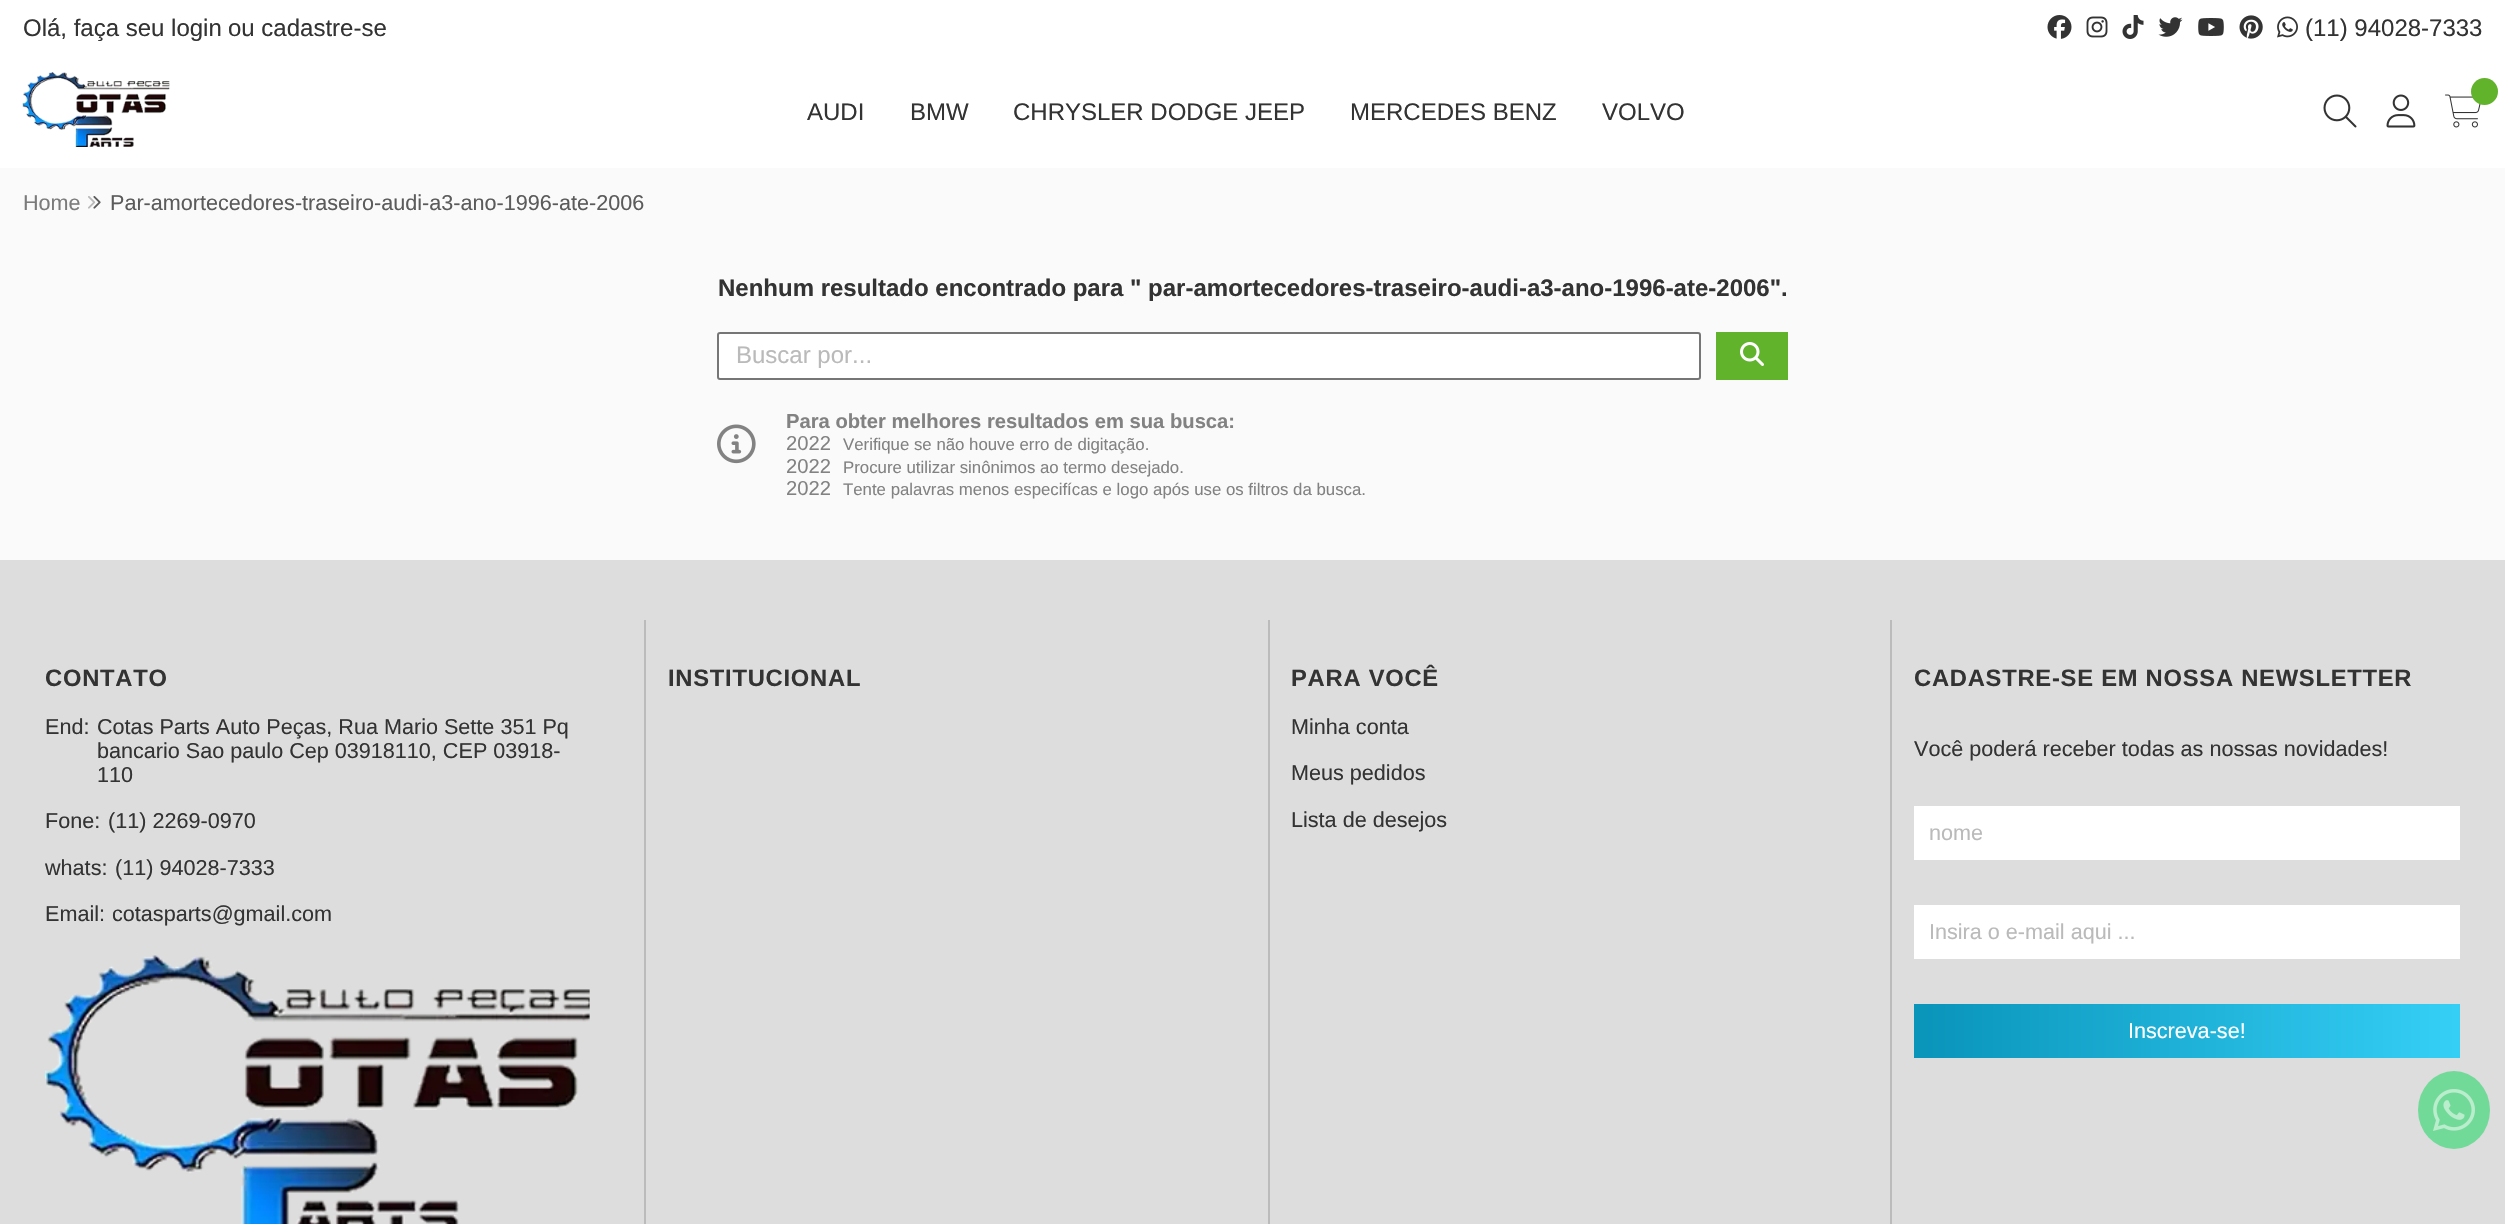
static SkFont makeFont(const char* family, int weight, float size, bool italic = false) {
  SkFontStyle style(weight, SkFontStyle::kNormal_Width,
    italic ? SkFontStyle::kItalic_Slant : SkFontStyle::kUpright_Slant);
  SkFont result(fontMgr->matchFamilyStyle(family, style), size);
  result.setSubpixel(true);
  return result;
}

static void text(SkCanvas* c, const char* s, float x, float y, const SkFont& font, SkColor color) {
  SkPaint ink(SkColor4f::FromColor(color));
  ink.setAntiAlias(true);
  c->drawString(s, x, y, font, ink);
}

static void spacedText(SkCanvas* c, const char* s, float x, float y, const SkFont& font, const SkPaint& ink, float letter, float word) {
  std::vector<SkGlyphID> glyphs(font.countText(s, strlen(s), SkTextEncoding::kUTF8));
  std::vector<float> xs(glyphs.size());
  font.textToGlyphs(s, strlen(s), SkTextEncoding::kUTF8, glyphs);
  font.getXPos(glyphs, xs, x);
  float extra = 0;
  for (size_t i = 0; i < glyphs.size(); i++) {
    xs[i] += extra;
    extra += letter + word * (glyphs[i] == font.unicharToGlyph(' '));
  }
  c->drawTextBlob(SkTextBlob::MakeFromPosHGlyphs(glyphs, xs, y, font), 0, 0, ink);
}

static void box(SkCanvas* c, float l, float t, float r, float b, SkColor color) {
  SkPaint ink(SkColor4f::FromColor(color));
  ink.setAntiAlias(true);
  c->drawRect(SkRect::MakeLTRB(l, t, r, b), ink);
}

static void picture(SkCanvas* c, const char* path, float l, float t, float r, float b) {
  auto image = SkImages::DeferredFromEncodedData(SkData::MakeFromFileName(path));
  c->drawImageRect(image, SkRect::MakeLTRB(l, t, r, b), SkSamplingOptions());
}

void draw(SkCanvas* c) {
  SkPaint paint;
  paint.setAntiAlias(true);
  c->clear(0xfffafafa);
  box(c, 0, 0, 2505, 168, 0xffffffff);
  SkFont face1 = makeFont("Liberation Sans", 400, 24);
  text(c, "Olá, faça seu login", 23, 36, face1, 0xff333333);
  text(c, "ou cadastre-se", 228, 36, face1, 0xff333333);
  picture(c, "img_01.png", 2047, 15, 2072, 39);
  picture(c, "img_02.png", 2086, 16, 2108, 38);
  picture(c, "img_03.png", 2122, 15, 2144, 39);
  picture(c, "img_04.png", 2158, 17, 2183, 37);
  picture(c, "img_05.png", 2198, 18, 2224, 36);
  picture(c, "img_06.png", 2239, 15, 2263, 39);
  picture(c, "img_07.png", 2277, 16, 2298, 38);
  text(c, "(11) 94028-7333", 2305, 36, face1, 0xff333333);
  picture(c, "img_08.png", 22, 72, 170, 147);
  text(c, "AUDI", 807, 120, face1, 0xff333333);
  text(c, "BMW", 910, 120, face1, 0xff333333);
  text(c, "CHRYSLER DODGE JEEP", 1013, 120, face1, 0xff333333);
  text(c, "MERCEDES BENZ", 1350, 120, face1, 0xff333333);
  text(c, "VOLVO", 1602, 120, face1, 0xff333333);
  picture(c, "img_09.png", 2323, 94, 2357, 128);
  picture(c, "img_10.png", 2386, 94, 2416, 128);
  picture(c, "img_11.png", 2445, 94, 2481, 128);
  paint.setColor(0xff61b32b);
  c->drawCircle(2484.5f, 91.5f, 13.5f, paint);
  SkFont face2 = makeFont("Liberation Sans", 400, 21.6f);
  text(c, "Home", 23, 210, face2, 0xff7b7b7b);
  picture(c, "img_12.png", 88, 196, 101, 209);
  text(c, "Par-amortecedores-traseiro-audi-a3-ano-1996-ate-2006", 110, 210, face2, 0xff5b5b5b);
  SkFont face3 = makeFont("Liberation Sans", 700, 24);
  text(c, "Nenhum resultado encontrado para \" par-amortecedores-traseiro-audi-a3-ano-1996-ate-2006\".", 718, 296, face3, 0xff333333);
  paint.setColor(0xffffffff);
  c->drawRoundRect(SkRect::MakeLTRB(718, 333, 1700, 379), 2, 2, paint);
  paint.setStyle(SkPaint::kStroke_Style);
  paint.setStrokeWidth(2);
  paint.setColor(0xff767676);
  c->drawRoundRect(SkRect::MakeLTRB(718, 333, 1700, 379), 2, 2, paint);
  text(c, "Buscar por...", 736, 363, face1, 0xffbababa);
  box(c, 1716, 332, 1788, 380, 0xff61b32b);
  picture(c, "img_13.png", 1740, 342, 1764, 366);
  picture(c, "img_14.png", 717, 424, 756, 464);
  SkFont face4 = makeFont("Liberation Sans", 700, 20.2f);
  text(c, "Para obter melhores resultados em sua busca:", 786, 428, face4, 0xff828282);
  SkFont face5 = makeFont("Liberation Sans", 400, 20.2f);
  text(c, "2022", 786, 450, face5, 0xff828282);
  SkFont face6 = makeFont("Liberation Sans", 400, 16.8f);
  text(c, "Verifique se não houve erro de digitação.", 843, 450, face6, 0xff828282);
  text(c, "2022", 786, 473, face5, 0xff828282);
  text(c, "Procure utilizar sinônimos ao termo desejado.", 843, 473, face6, 0xff828282);
  text(c, "2022", 786, 495, face5, 0xff828282);
  text(c, "Tente palavras menos especifícas e logo após use os filtros da busca.", 843, 495, face6, 0xff828282);
  box(c, 0, 560, 2505, 1224, 0xffdddddd);
  SkFont face7 = makeFont("Liberation Sans", 700, 23.75f);
  paint.setStyle(SkPaint::kFill_Style);
  paint.setColor(0xff333333);
  spacedText(c, "CONTATO", 45, 686, face7, paint, 0.75f, 0);
  text(c, "End:", 45, 734, face2, 0xff333333);
  text(c, "Cotas Parts Auto Peças, Rua Mario Sette 351 Pq", 97, 734, face2, 0xff333333);
  text(c, "bancario Sao paulo Cep 03918110, CEP 03918-", 97, 758, face2, 0xff333333);
  text(c, "110", 97, 782, face2, 0xff333333);
  text(c, "Fone:", 45, 828, face2, 0xff333333);
  text(c, "(11) 2269-0970", 108, 828, face2, 0xff333333);
  text(c, "whats:", 45, 875, face2, 0xff333333);
  text(c, "(11) 94028-7333", 115, 875, face2, 0xff333333);
  text(c, "Email:", 45, 921, face2, 0xff333333);
  text(c, "cotasparts@gmail.com", 112, 921, face2, 0xff333333);
  picture(c, "img_15.png", 45, 955, 590, 1224);
  box(c, 644, 620, 646, 1224, 0xffbbbbbb);
  spacedText(c, "INSTITUCIONAL", 668, 686, face7, paint, 0.75f, 0);
  box(c, 1268, 620, 1270, 1224, 0xffbbbbbb);
  spacedText(c, "PARA VOCÊ", 1291, 686, face7, paint, 0.75f, 0);
  text(c, "Minha conta", 1291, 734, face2, 0xff333333);
  text(c, "Meus pedidos", 1291, 780, face2, 0xff333333);
  text(c, "Lista de desejos", 1291, 827, face2, 0xff333333);
  box(c, 1890, 620, 1892, 1224, 0xffbbbbbb);
  spacedText(c, "CADASTRE-SE EM NOSSA NEWSLETTER", 1914, 686, face7, paint, 0.75f, 0);
  text(c, "Você poderá receber todas as nossas novidades!", 1914, 756, face2, 0xff333333);
  box(c, 1914, 806, 2460, 860, 0xffffffff);
  text(c, "nome", 1929, 840, face2, 0xffbababa);
  box(c, 1914, 905, 2460, 959, 0xffffffff);
  text(c, "Insira o e-mail aqui ...", 1929, 939, face2, 0xffbababa);
  {
    const SkColor colors[] = {0xff0994ba, 0xff36d0f7, 0xff0994ba};
    const float stops[] = {0, 0.51f, 1};
    const SkPoint ends[] = {{1914, 1031}, {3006, 1031}};
    paint.setShader(SkGradientShader::MakeLinear(ends, colors, stops, 3, SkTileMode::kClamp));
    paint.setAlpha(255);
  }
  c->drawRect(SkRect::MakeLTRB(1914, 1004, 2460, 1058), paint);
  text(c, "Inscreva-se!", 2128, 1038, face2, 0xffffffff);
  paint.setShader(nullptr);
  paint.setColor(0xff72da99);
  c->drawOval(SkRect::MakeLTRB(2418, 1071, 2490, 1149), paint);
  picture(c, "img_16.png", 2433, 1089, 2475, 1131);
}
